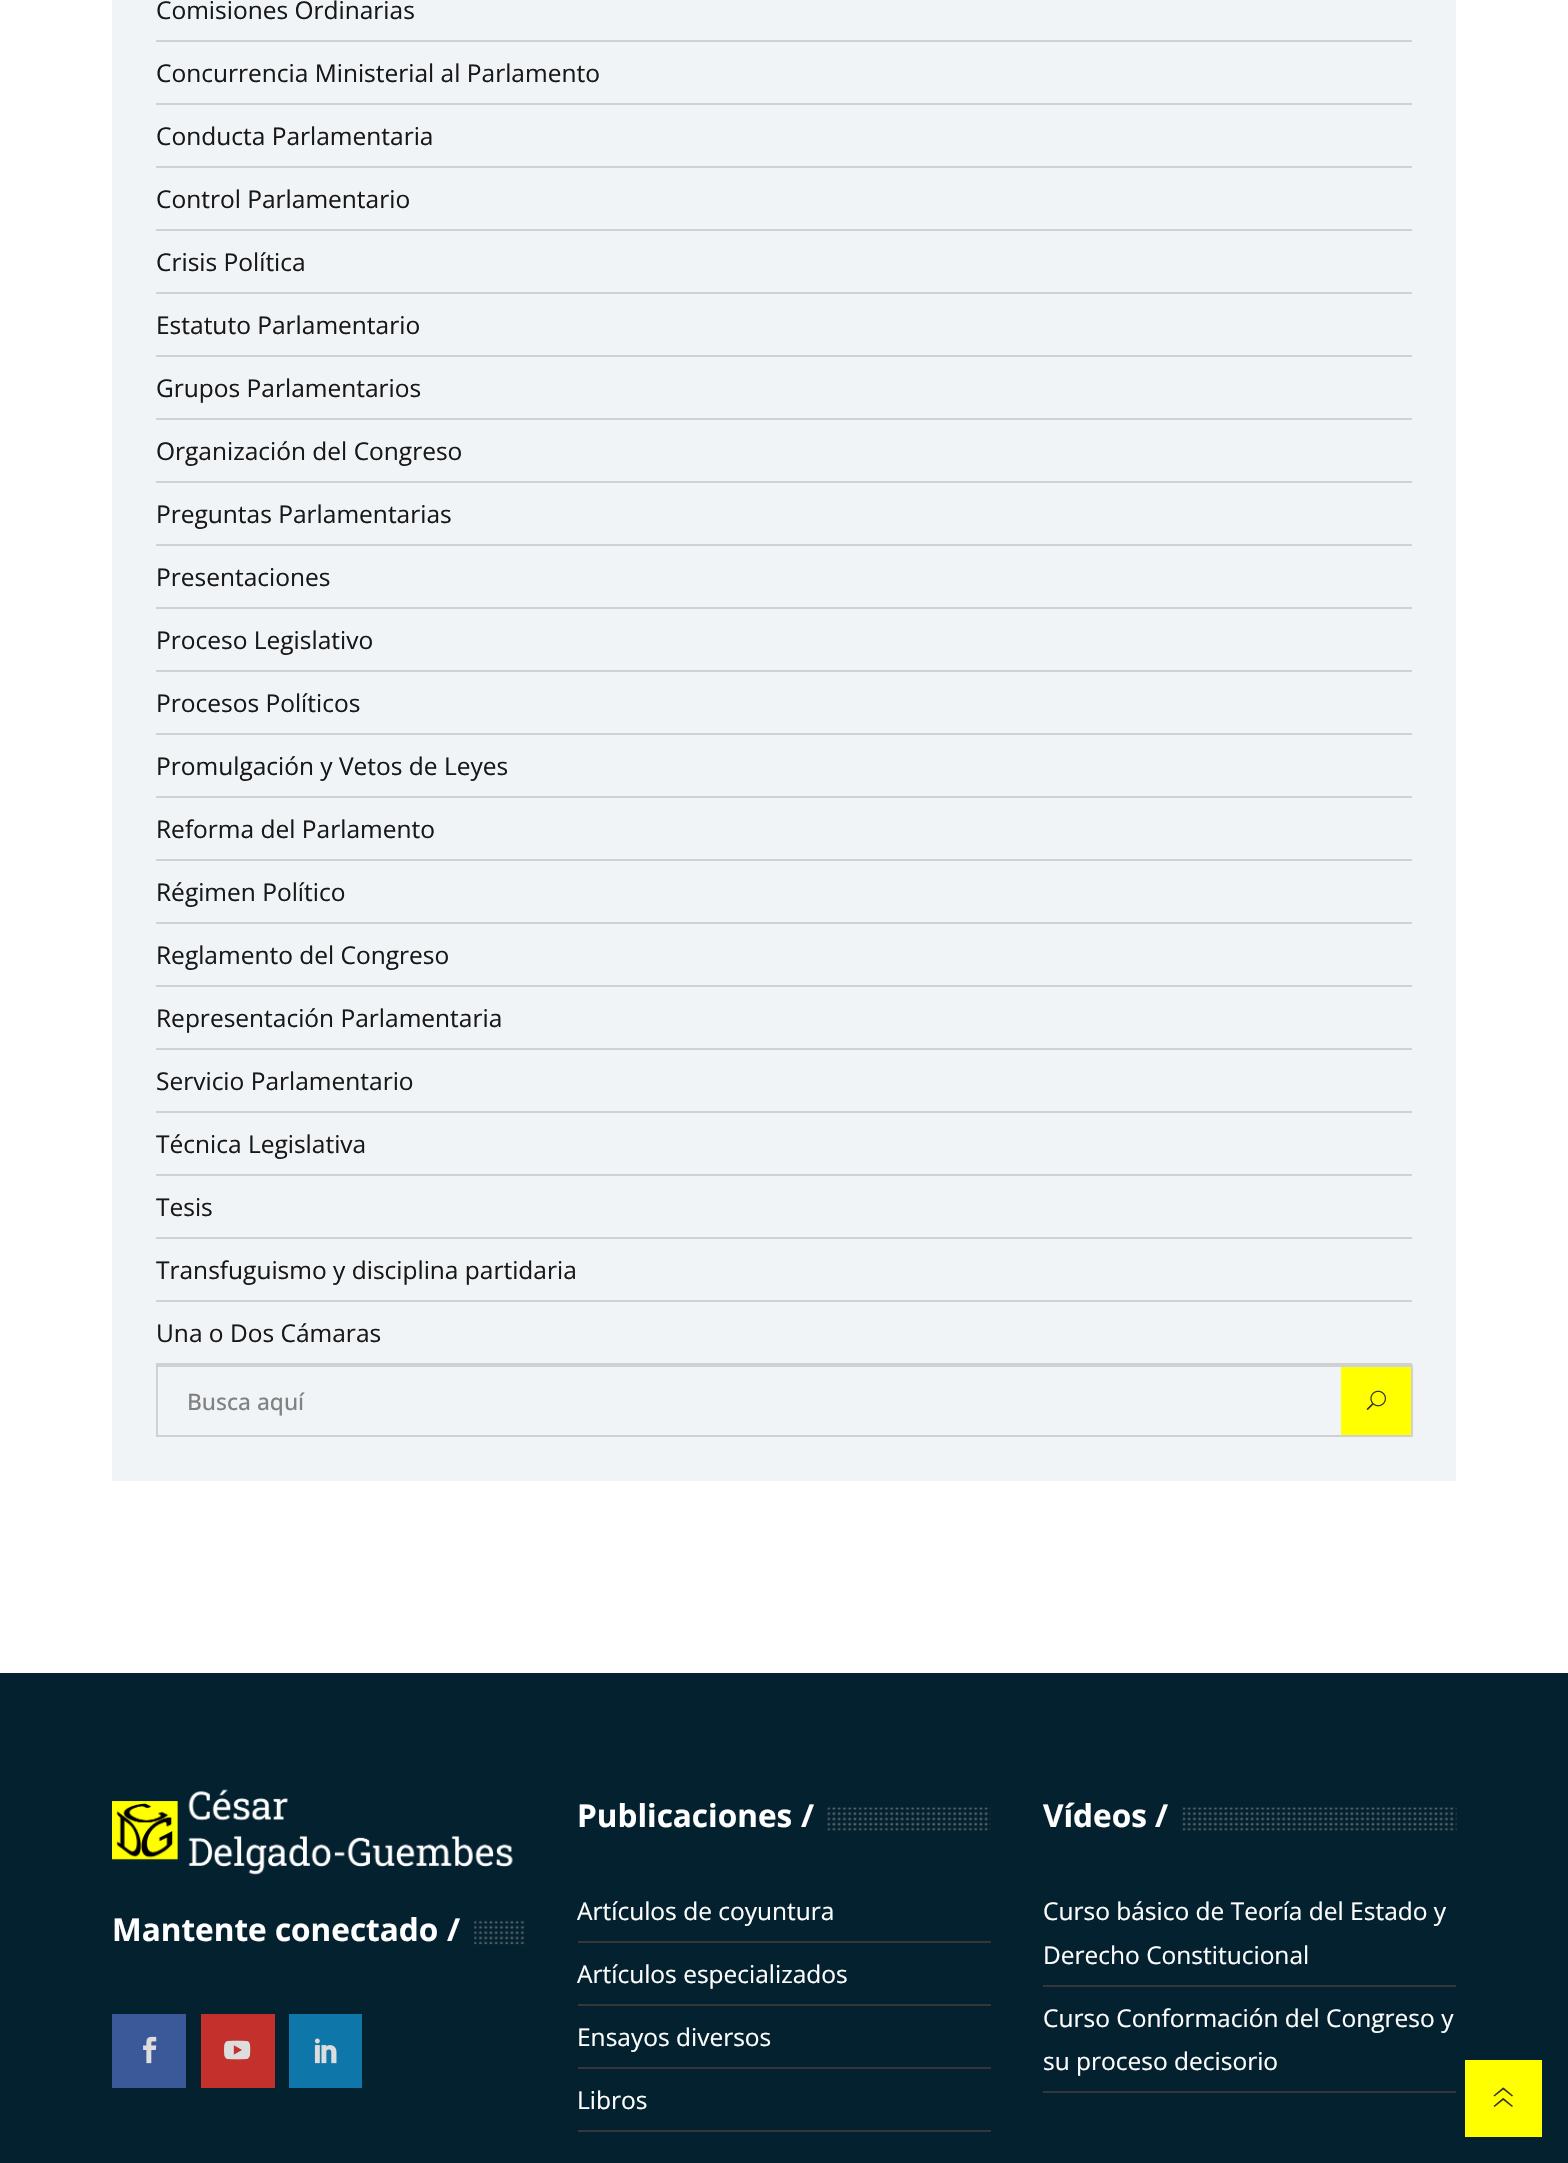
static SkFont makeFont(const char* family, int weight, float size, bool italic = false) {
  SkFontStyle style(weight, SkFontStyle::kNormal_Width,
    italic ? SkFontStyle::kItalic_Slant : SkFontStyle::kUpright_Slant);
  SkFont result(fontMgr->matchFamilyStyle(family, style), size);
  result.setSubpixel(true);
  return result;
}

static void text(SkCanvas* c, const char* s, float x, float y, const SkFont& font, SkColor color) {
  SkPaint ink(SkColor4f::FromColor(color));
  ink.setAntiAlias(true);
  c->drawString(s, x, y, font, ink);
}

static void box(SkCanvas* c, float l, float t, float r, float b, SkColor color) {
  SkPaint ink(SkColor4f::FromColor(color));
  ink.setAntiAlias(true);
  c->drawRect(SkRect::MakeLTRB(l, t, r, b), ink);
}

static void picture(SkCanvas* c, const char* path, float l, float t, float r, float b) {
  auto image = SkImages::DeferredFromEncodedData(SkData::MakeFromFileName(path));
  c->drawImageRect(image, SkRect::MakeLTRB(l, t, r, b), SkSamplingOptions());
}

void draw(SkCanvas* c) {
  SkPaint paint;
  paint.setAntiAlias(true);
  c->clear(0xffffffff);
  box(c, 112, 0, 1456, 1481, 0xfff0f4f6);
  box(c, 156, 40, 1412, 42, 0xffd1d1d1);
  SkFont face1 = makeFont("Open Sans", 400, 24.5f);
  text(c, "Comisiones Ordinarias", 156, 19, face1, 0xff191818);
  box(c, 156, 103, 1412, 105, 0xffd1d1d1);
  text(c, "Concurrencia Ministerial al Parlamento", 156, 82, face1, 0xff191818);
  box(c, 156, 166, 1412, 168, 0xffd1d1d1);
  text(c, "Conducta Parlamentaria", 156, 145, face1, 0xff191818);
  box(c, 156, 229, 1412, 231, 0xffd1d1d1);
  text(c, "Control Parlamentario", 156, 208, face1, 0xff191818);
  box(c, 156, 292, 1412, 294, 0xffd1d1d1);
  text(c, "Crisis Política", 156, 271, face1, 0xff191818);
  box(c, 156, 355, 1412, 357, 0xffd1d1d1);
  text(c, "Estatuto Parlamentario", 156, 334, face1, 0xff191818);
  box(c, 156, 418, 1412, 420, 0xffd1d1d1);
  text(c, "Grupos Parlamentarios", 156, 397, face1, 0xff191818);
  box(c, 156, 481, 1412, 483, 0xffd1d1d1);
  text(c, "Organización del Congreso", 156, 460, face1, 0xff191818);
  box(c, 156, 544, 1412, 546, 0xffd1d1d1);
  text(c, "Preguntas Parlamentarias", 156, 523, face1, 0xff191818);
  box(c, 156, 607, 1412, 609, 0xffd1d1d1);
  text(c, "Presentaciones", 156, 586, face1, 0xff191818);
  box(c, 156, 670, 1412, 672, 0xffd1d1d1);
  text(c, "Proceso Legislativo", 156, 649, face1, 0xff191818);
  box(c, 156, 733, 1412, 735, 0xffd1d1d1);
  text(c, "Procesos Políticos", 156, 712, face1, 0xff191818);
  box(c, 156, 796, 1412, 798, 0xffd1d1d1);
  text(c, "Promulgación y Vetos de Leyes", 156, 775, face1, 0xff191818);
  box(c, 156, 859, 1412, 861, 0xffd1d1d1);
  text(c, "Reforma del Parlamento", 156, 838, face1, 0xff191818);
  box(c, 156, 922, 1412, 924, 0xffd1d1d1);
  text(c, "Régimen Político", 156, 901, face1, 0xff191818);
  box(c, 156, 985, 1412, 987, 0xffd1d1d1);
  text(c, "Reglamento del Congreso", 156, 964, face1, 0xff191818);
  box(c, 156, 1048, 1412, 1050, 0xffd1d1d1);
  text(c, "Representación Parlamentaria", 156, 1027, face1, 0xff191818);
  box(c, 156, 1111, 1412, 1113, 0xffd1d1d1);
  text(c, "Servicio Parlamentario", 156, 1090, face1, 0xff191818);
  box(c, 156, 1174, 1412, 1176, 0xffd1d1d1);
  text(c, "Técnica Legislativa", 156, 1153, face1, 0xff191818);
  box(c, 156, 1237, 1412, 1239, 0xffd1d1d1);
  text(c, "Tesis", 156, 1216, face1, 0xff191818);
  box(c, 156, 1300, 1412, 1302, 0xffd1d1d1);
  text(c, "Transfuguismo y disciplina partidaria", 156, 1279, face1, 0xff191818);
  box(c, 156, 1363, 1412, 1365, 0xffd1d1d1);
  text(c, "Una o Dos Cámaras", 156, 1342, face1, 0xff191818);
  box(c, 156, 1365, 1412, 1367, 0xffd1d1d1);
  box(c, 156, 1435, 1341, 1437, 0xffd1d1d1);
  box(c, 156, 1365, 158, 1437, 0xffd1d1d1);
  SkFont face2 = makeFont("Open Sans", 500, 22.75f);
  text(c, "Busca aquí", 187, 1410, face2, 0xff818181);
  box(c, 1341, 1367, 1411, 1435, 0xffffff00);
  box(c, 1411, 1365, 1413, 1437, 0xffd1d1d1);
  box(c, 1341, 1435, 1412, 1437, 0xffd1d1d1);
  picture(c, "img_01.png", 1366, 1390, 1386, 1410);
  box(c, 0, 1673, 1568, 2163, 0xff04212f);
  picture(c, "img_02.png", 112, 1789, 513, 1875);
  SkFont face3 = makeFont("Open Sans", 700, 31.5f);
  text(c, "Mantente conectado", 112, 1941, face3, 0xffffffff);
  text(c, "/", 447, 1941, face3, 0xffffffff);
  picture(c, "img_03.png", 474, 1920, 525, 1945);
  box(c, 112, 2014, 186, 2088, 0xff3b5998);
  picture(c, "img_04.png", 143, 2036, 157, 2064);
  box(c, 201, 2014, 275, 2088, 0xffc4302b);
  picture(c, "img_05.png", 224, 2040, 251, 2060);
  box(c, 289, 2014, 362, 2088, 0xff0e76a8);
  picture(c, "img_06.png", 314, 2038, 337, 2064);
  text(c, "Publicaciones", 577, 1827, face3, 0xffffffff);
  text(c, "/", 801, 1827, face3, 0xffffffff);
  picture(c, "img_07.png", 827, 1807, 991, 1831);
  box(c, 578, 1941, 991, 1943, 0xff363636);
  text(c, "Artículos de coyuntura", 577, 1920, face1, 0xffffffff);
  box(c, 578, 2004, 991, 2006, 0xff363636);
  text(c, "Artículos especializados", 577, 1983, face1, 0xffffffff);
  box(c, 578, 2067, 991, 2069, 0xff363636);
  text(c, "Ensayos diversos", 577, 2046, face1, 0xffffffff);
  box(c, 578, 2130, 991, 2132, 0xff363636);
  text(c, "Libros", 577, 2109, face1, 0xffffffff);
  text(c, "Vídeos", 1043, 1827, face3, 0xffffffff);
  text(c, "/", 1155, 1827, face3, 0xffffffff);
  picture(c, "img_08.png", 1182, 1807, 1457, 1831);
  box(c, 1043, 1985, 1456, 1987, 0xff363636);
  text(c, "Curso básico de Teoría del Estado y", 1043, 1920, face1, 0xffffffff);
  text(c, "Derecho Constitucional", 1043, 1964, face1, 0xffffffff);
  box(c, 1043, 2091, 1456, 2093, 0xff363636);
  text(c, "Curso Conformación del Congreso y", 1043, 2027, face1, 0xffffffff);
  text(c, "su proceso decisorio", 1043, 2070, face1, 0xffffffff);
  box(c, 1465, 2060, 1542, 2137, 0xffffff00);
  paint.setColor(0xff333333);
  c->drawPath(SkPathBuilder().moveTo(1503, 2087.5f).lineTo(1504, 2089).lineTo(1494.5f, 2096.5f).lineTo(1493.5f, 2095.5f).close().detach(), paint);
  c->drawPath(SkPathBuilder().moveTo(1502.5f, 2089).lineTo(1503.5f, 2087.5f).lineTo(1513, 2095.5f).lineTo(1512, 2096.5f).close().moveTo(1503, 2098).lineTo(1504, 2099.5f).lineTo(1494.5f, 2107).lineTo(1493.5f, 2106).close().detach(), paint);
  c->drawPath(SkPathBuilder().moveTo(1502.5f, 2099.5f).lineTo(1503.5f, 2098).lineTo(1513, 2106).lineTo(1512, 2107).close().detach(), paint);
}
